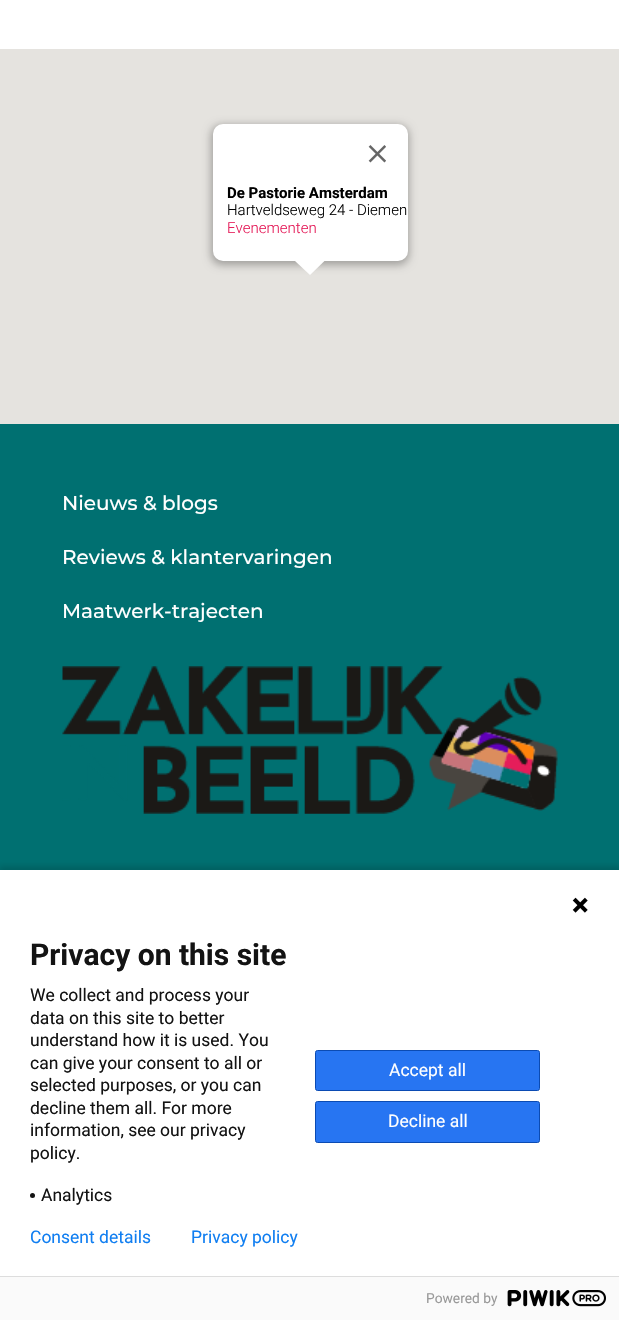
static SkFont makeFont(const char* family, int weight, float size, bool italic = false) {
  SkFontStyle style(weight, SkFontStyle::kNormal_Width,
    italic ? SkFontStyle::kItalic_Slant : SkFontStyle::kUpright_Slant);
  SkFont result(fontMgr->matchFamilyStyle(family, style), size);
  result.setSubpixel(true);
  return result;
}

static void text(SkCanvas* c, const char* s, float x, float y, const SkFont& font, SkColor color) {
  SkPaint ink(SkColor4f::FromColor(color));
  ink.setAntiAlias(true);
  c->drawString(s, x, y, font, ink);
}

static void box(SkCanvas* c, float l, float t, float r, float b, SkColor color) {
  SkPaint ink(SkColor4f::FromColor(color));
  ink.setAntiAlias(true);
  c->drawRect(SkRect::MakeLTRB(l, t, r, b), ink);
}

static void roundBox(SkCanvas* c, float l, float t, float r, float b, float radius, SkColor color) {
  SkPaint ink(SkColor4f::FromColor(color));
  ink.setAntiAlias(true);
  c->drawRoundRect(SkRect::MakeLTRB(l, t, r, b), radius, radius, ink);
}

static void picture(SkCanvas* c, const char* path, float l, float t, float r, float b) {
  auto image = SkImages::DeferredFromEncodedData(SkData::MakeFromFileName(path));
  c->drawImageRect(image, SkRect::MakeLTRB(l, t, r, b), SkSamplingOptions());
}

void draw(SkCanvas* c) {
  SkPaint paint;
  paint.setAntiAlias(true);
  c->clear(0xffffffff);
  box(c, 0, 49, 619, 424, 0xffe5e3df);
  paint.setColor(0x4d000000);
  paint.setMaskFilter(SkMaskFilter::MakeBlur(kNormal_SkBlurStyle, 4.5f));
  c->drawRoundRect(SkRect::MakeLTRB(211, 125, 409, 265), 11, 11, paint);
  paint.setMaskFilter(nullptr);
  roundBox(c, 213, 124, 408, 261, 10, 0xffffffff);
  picture(c, "img_01.png", 368, 145, 386, 163);
  SkFont face1 = makeFont("Roboto", 700, 15);
  text(c, "De Pastorie Amsterdam", 227, 198, face1, 0xff000000);
  SkFont face2 = makeFont("Roboto", 300, 15);
  text(c, "Hartveldseweg 24 - Diemen", 227, 215, face2, 0xff000000);
  text(c, "Evenementen", 227, 233, face2, 0xffe51d5a);
  paint.setColor(0xffffffff);
  c->drawPath(SkPathBuilder().moveTo(295, 261).lineTo(295, 260).lineTo(325.5f, 260).lineTo(310, 275).close().detach(), paint);
  box(c, 0, 424, 619, 870, 0xff007071);
  SkFont face3 = makeFont("Montserrat", 100, 20);
  text(c, "Nieuws & blogs", 62, 510, face3, 0xffffffff);
  text(c, "Reviews & klantervaringen", 62, 564, face3, 0xffffffff);
  text(c, "Maatwerk-trajecten", 62, 618, face3, 0xffffffff);
  picture(c, "img_02.png", 62, 666, 558, 814);
  paint.setColor(0x24000000);
  paint.setMaskFilter(SkMaskFilter::MakeBlur(kNormal_SkBlurStyle, 3));
  c->drawRect(SkRect::MakeLTRB(-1, 866, 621, 1319), paint);
  paint.setMaskFilter(nullptr);
  box(c, 0, 870, 619, 1276, 0xffffffff);
  picture(c, "img_03.png", 572, 897, 588, 913);
  SkFont face4 = makeFont("Roboto", 700, 30);
  text(c, "Privacy on this site", 30, 965, face4, 0xff131313);
  SkFont face5 = makeFont("Roboto", 400, 17.5f);
  text(c, "We collect and process your", 30, 1001, face5, 0xff131313);
  text(c, "data on this site to better", 30, 1024, face5, 0xff131313);
  text(c, "understand how it is used. You", 30, 1046, face5, 0xff131313);
  text(c, "can give your consent to all or", 30, 1069, face5, 0xff131313);
  text(c, "selected purposes, or you can", 30, 1091, face5, 0xff131313);
  text(c, "decline them all. For more", 30, 1114, face5, 0xff131313);
  text(c, "information, see our privacy", 30, 1136, face5, 0xff131313);
  text(c, "policy.", 30, 1159, face5, 0xff131313);
  paint.setColor(0xff131313);
  c->drawCircle(32.5f, 1195.5f, 2.5f, paint);
  text(c, "Analytics", 41, 1201, face5, 0xff131313);
  paint.setColor(0xff2775f2);
  c->drawRoundRect(SkRect::MakeLTRB(315.5f, 1050.5f, 539.5f, 1090.5f), 2, 2, paint);
  paint.setStyle(SkPaint::kStroke_Style);
  paint.setStrokeWidth(1);
  paint.setColor(0xff0b4bb3);
  c->drawRoundRect(SkRect::MakeLTRB(315.5f, 1050.5f, 539.5f, 1090.5f), 2, 2, paint);
  text(c, "Accept all", 389, 1076, face5, 0xffffffff);
  paint.setStyle(SkPaint::kFill_Style);
  paint.setColor(0xff2775f2);
  c->drawRoundRect(SkRect::MakeLTRB(315.5f, 1101.5f, 539.5f, 1142.5f), 2, 2, paint);
  paint.setStyle(SkPaint::kStroke_Style);
  paint.setColor(0xff0b4bb3);
  c->drawRoundRect(SkRect::MakeLTRB(315.5f, 1101.5f, 539.5f, 1142.5f), 2, 2, paint);
  text(c, "Decline all", 388, 1127, face5, 0xffffffff);
  text(c, "Consent details", 30, 1243, face5, 0xff107ef1);
  text(c, "Privacy policy", 191, 1243, face5, 0xff107ef1);
  box(c, 0, 1277, 619, 1320, 0xfffafafa);
  box(c, 0, 1276, 619, 1277, 0xffdddddd);
  SkFont face6 = makeFont("Roboto", 400, 13.75f);
  text(c, "Powered by", 426, 1303, face6, 0xff999999);
  picture(c, "img_04.png", 507, 1290, 606, 1307);
}
